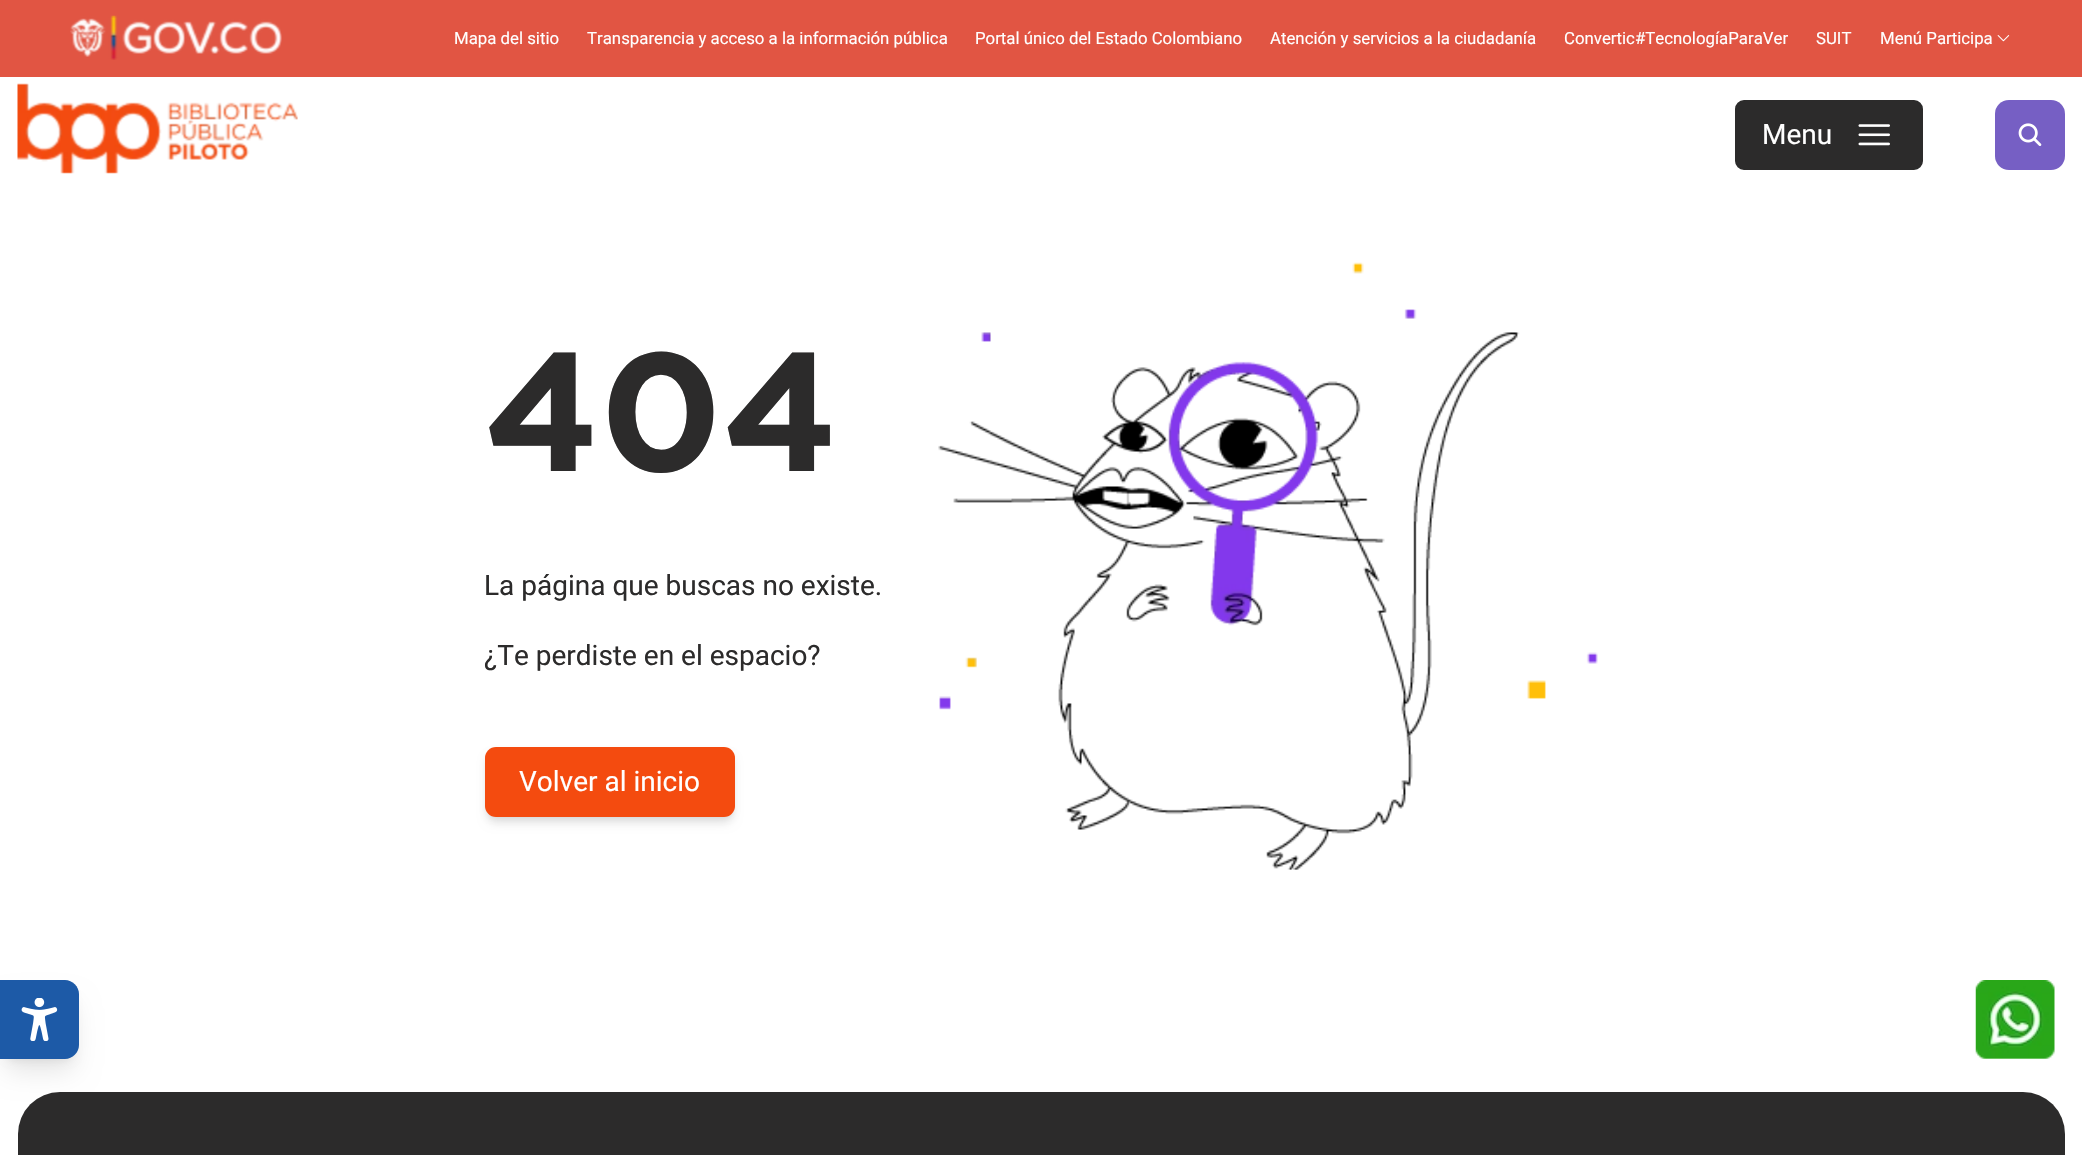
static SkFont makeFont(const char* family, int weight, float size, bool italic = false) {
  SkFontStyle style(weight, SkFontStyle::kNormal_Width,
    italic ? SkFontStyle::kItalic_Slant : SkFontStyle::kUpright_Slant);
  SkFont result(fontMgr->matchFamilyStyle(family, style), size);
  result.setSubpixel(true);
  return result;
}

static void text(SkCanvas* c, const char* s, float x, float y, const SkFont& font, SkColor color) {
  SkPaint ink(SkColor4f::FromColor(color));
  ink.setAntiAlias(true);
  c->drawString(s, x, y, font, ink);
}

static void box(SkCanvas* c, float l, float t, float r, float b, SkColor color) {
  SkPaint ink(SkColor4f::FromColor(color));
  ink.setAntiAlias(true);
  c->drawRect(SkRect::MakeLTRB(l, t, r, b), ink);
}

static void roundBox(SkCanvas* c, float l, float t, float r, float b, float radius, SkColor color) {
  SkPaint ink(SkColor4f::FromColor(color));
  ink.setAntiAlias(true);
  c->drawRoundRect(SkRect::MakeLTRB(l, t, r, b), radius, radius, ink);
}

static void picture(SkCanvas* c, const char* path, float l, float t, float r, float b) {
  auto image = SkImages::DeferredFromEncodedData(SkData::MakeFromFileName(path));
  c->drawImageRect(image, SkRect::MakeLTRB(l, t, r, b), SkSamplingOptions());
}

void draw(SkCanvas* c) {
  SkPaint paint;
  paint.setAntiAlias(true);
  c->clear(0xffffffff);
  box(c, 0, 0, 2082, 77, 0xffe15543);
  picture(c, "img_01.png", 70, 15, 282, 60);
  SkFont face1 = makeFont("Roboto", 400, 16.8f);
  text(c, "Mapa del sitio", 454, 44, face1, 0xffffffff);
  text(c, "Transparencia y acceso a la información pública", 587, 44, face1, 0xffffffff);
  text(c, "Portal único del Estado Colombiano", 975, 44, face1, 0xffffffff);
  text(c, "Atención y servicios a la ciudadanía", 1270, 44, face1, 0xffffffff);
  text(c, "Convertic#TecnologíaParaVer", 1564, 44, face1, 0xffffffff);
  text(c, "SUIT", 1816, 44, face1, 0xffffffff);
  text(c, "Menú Participa", 1880, 44, face1, 0xffffffff);
  picture(c, "img_02.png", 1997, 35, 2010, 42);
  picture(c, "img_03.png", 17, 83, 298, 174);
  paint.setColor(0xff2c2b2b);
  c->drawRoundRect(SkRect::MakeLTRB(1734, 99, 1924, 171), 10, 10, paint);
  paint.setStyle(SkPaint::kStroke_Style);
  paint.setStrokeWidth(2);
  paint.setColor(0xffffffff);
  c->drawRoundRect(SkRect::MakeLTRB(1734, 99, 1924, 171), 10, 10, paint);
  SkFont face2 = makeFont("Roboto", 400, 28);
  text(c, "Menu", 1762, 144, face2, 0xffffffff);
  picture(c, "img_04.png", 1858, 124, 1890, 146);
  roundBox(c, 1995, 100, 2065, 170, 14, 0xff765fc4);
  picture(c, "img_05.png", 2018, 123, 2042, 146);
  SkFont face3 = makeFont("Gotham", 700, 168);
  text(c, "404", 484, 471, face3, 0xff2c2b2b);
  text(c, "La página que buscas no existe.", 484, 595, face2, 0xff2c2b2b);
  text(c, "¿Te perdiste en el espacio?", 484, 665, face2, 0xff2c2b2b);
  paint.setStyle(SkPaint::kFill_Style);
  paint.setColor(0x1a000000);
  paint.setMaskFilter(SkMaskFilter::MakeBlur(kNormal_SkBlurStyle, 3.5f));
  c->drawRoundRect(SkRect::MakeLTRB(488, 754, 732, 817), 7, 7, paint);
  paint.setMaskFilter(nullptr);
  paint.setMaskFilter(SkMaskFilter::MakeBlur(kNormal_SkBlurStyle, 5));
  c->drawRoundRect(SkRect::MakeLTRB(487, 756, 733, 823), 9, 9, paint);
  paint.setMaskFilter(nullptr);
  roundBox(c, 485, 747, 735, 817, 11, 0xfff44b0f);
  text(c, "Volver al inicio", 519, 791, face2, 0xffffffff);
  picture(c, "img_06.png", 938, 262, 1598, 870);
  roundBox(c, 18, 1092, 2065, 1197, 42, 0xff2c2b2b);
  paint.setMaskFilter(SkMaskFilter::MakeBlur(kNormal_SkBlurStyle, 5));
  c->drawRoundRect(SkRect::MakeLTRB(7, 994, 72, 1059), 7, 7, paint);
  paint.setMaskFilter(nullptr);
  paint.setMaskFilter(SkMaskFilter::MakeBlur(kNormal_SkBlurStyle, 13));
  c->drawRoundRect(SkRect::MakeLTRB(5, 1003, 74, 1071), 9, 9, paint);
  paint.setMaskFilter(nullptr);
  paint.setColor(0xff1d5aa7);
  c->drawPath(SkPathBuilder().moveTo(0, 980).lineTo(65, 980).cubicTo(72.5f, 980, 79, 986.5f, 79, 994).lineTo(79, 1045).cubicTo(79, 1052.5f, 72.5f, 1059, 65, 1059).lineTo(0, 1059).close().detach(), paint);
  picture(c, "img_07.png", 21, 998, 58, 1041);
  picture(c, "img_08.png", 1975, 980, 2055, 1059);
}
